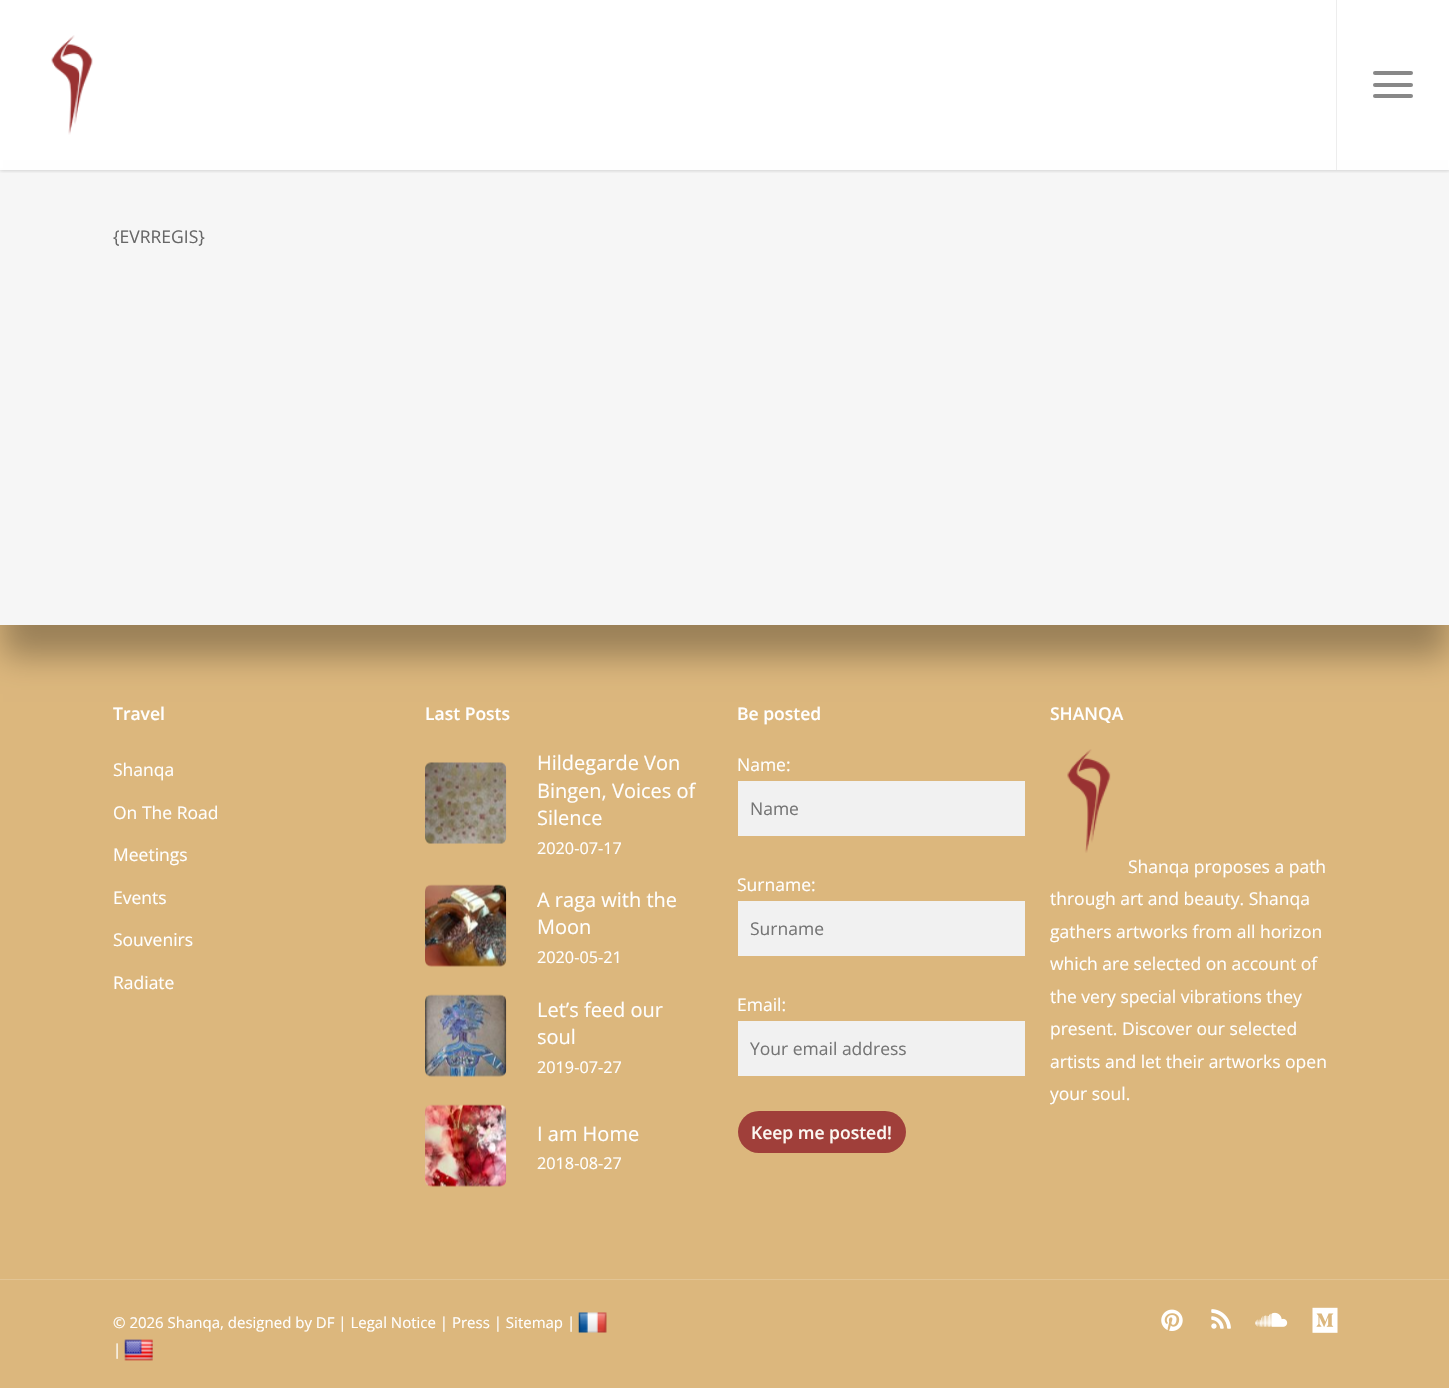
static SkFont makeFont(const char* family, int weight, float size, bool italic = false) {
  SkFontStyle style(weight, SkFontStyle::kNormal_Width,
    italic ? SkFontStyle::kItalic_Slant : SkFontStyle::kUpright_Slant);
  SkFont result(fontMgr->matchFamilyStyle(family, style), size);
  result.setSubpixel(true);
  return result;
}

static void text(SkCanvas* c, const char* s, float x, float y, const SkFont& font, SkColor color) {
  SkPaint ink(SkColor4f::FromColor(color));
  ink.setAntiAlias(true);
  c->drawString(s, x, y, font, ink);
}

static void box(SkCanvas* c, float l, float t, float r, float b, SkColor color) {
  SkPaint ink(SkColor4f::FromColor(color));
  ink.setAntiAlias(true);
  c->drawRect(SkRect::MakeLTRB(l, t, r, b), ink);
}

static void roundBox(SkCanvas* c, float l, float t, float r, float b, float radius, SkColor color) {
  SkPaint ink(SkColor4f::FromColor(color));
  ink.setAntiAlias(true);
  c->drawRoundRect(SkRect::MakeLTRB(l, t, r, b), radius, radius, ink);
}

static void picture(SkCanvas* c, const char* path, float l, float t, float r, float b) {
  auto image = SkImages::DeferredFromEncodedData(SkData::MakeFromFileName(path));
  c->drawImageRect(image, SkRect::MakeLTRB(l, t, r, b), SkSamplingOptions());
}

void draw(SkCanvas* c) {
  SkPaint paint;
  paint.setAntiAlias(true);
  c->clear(0xffffffff);
  box(c, 0, 625, 1449, 1388, 0xffdcb77d);
  paint.setColor(0x4d000000);
  paint.setMaskFilter(SkMaskFilter::MakeBlur(kNormal_SkBlurStyle, 15.5f));
  c->drawRect(SkRect::MakeLTRB(3, 206, 1448, 656), paint);
  paint.setMaskFilter(nullptr);
  box(c, 0, 170, 1449, 625, 0xfff6f6f6);
  c->save();
  c->clipRect(SkRect::MakeLTRB(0, 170, 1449, 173));
  paint.setColor(0x38000000);
  paint.setMaskFilter(SkMaskFilter::MakeBlur(kNormal_SkBlurStyle, 2));
  c->drawRect(SkRect::MakeLTRB(0, 0, 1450, 170), paint);
  paint.setMaskFilter(nullptr);
  c->restore();
  picture(c, "img_01.png", 51, 35, 93, 135);
  box(c, 1336, 0, 1337, 170, 0xffededed);
  roundBox(c, 1373, 71, 1413, 75, 2, 0xff888888);
  roundBox(c, 1373, 94, 1413, 98, 2, 0xff888888);
  roundBox(c, 1373, 83, 1413, 87, 2, 0xff888888);
  SkFont face1 = makeFont("Open Sans", 400, 17.5f);
  text(c, "{EVRREGIS}", 113, 243, face1, 0xff676767);
  SkFont face2 = makeFont("Open Sans", 600, 17.5f);
  text(c, "Travel", 113, 720, face2, 0xffffffff);
  text(c, "Shanqa", 113, 776, face1, 0xffffffff);
  text(c, "On The Road", 113, 819, face1, 0xffffffff);
  text(c, "Meetings", 113, 861, face1, 0xffffffff);
  text(c, "Events", 113, 904, face1, 0xffffffff);
  text(c, "Souvenirs", 113, 946, face1, 0xffffffff);
  text(c, "Radiate", 113, 989, face1, 0xffffffff);
  text(c, "Last Posts", 425, 720, face2, 0xffffffff);
  picture(c, "img_02.png", 425, 762, 507, 844);
  SkFont face3 = makeFont("Open Sans", 400, 20);
  text(c, "Hildegarde Von", 537, 770, face3, 0xffffffff);
  text(c, "Bingen, Voices of", 537, 798, face3, 0xffffffff);
  text(c, "Silence", 537, 825, face3, 0xffffffff);
  SkFont face4 = makeFont("Open Sans", 400, 16.25f);
  text(c, "2020-07-17", 537, 854, face4, 0xffffffff);
  picture(c, "img_03.png", 425, 884, 507, 967);
  text(c, "A raga with the", 537, 907, face3, 0xffffffff);
  text(c, "Moon", 537, 934, face3, 0xffffffff);
  text(c, "2020-05-21", 537, 963, face4, 0xffffffff);
  picture(c, "img_04.png", 425, 994, 507, 1077);
  text(c, "Let’s feed our", 537, 1017, face3, 0xffffffff);
  text(c, "soul", 537, 1044, face3, 0xffffffff);
  text(c, "2019-07-27", 537, 1073, face4, 0xffffffff);
  picture(c, "img_05.png", 425, 1104, 507, 1187);
  text(c, "I am Home", 537, 1141, face3, 0xffffffff);
  text(c, "2018-08-27", 537, 1169, face4, 0xffffffff);
  text(c, "Be posted", 737, 720, face2, 0xffffffff);
  text(c, "Name:", 737, 771, face1, 0xffffffff);
  box(c, 738, 781, 1025, 836, 0xfff1f1f1);
  text(c, "Name", 750, 815, face1, 0xff757575);
  text(c, "Surname:", 737, 891, face1, 0xffffffff);
  box(c, 738, 901, 1025, 956, 0xfff1f1f1);
  text(c, "Surname", 750, 935, face1, 0xff757575);
  text(c, "Email:", 737, 1011, face1, 0xffffffff);
  box(c, 738, 1021, 1025, 1076, 0xfff1f1f1);
  text(c, "Your email address", 750, 1055, face1, 0xff757575);
  roundBox(c, 738, 1111, 906, 1153, 21, 0xffa03f3a);
  text(c, "Keep me posted!", 751, 1139, face2, 0xfffcf8f2);
  text(c, "SHANQA", 1050, 720, face2, 0xffffffff);
  picture(c, "img_06.png", 1067, 749, 1111, 853);
  text(c, "Shanqa proposes a path", 1128, 873, face1, 0xffffffff);
  text(c, "through art and beauty. Shanqa", 1050, 905, face1, 0xffffffff);
  text(c, "gathers artworks from all horizon", 1050, 938, face1, 0xffffffff);
  text(c, "which are selected on account of", 1050, 970, face1, 0xffffffff);
  text(c, "the very special vibrations they", 1050, 1003, face1, 0xffffffff);
  text(c, "present. Discover our selected", 1050, 1035, face1, 0xffffffff);
  text(c, "artists and let their artworks open", 1050, 1068, face1, 0xffffffff);
  text(c, "your soul.", 1050, 1100, face1, 0xffffffff);
  box(c, 0, 1279, 1449, 1280, 0xffe2c494);
  SkFont face5 = makeFont("Open Sans", 400, 15);
  text(c, "© 2026 Shanqa, designed by DF | Legal Notice | Press | Sitemap |", 113, 1328, face5, 0xffffffff);
  picture(c, "img_07.png", 578, 1312, 607, 1333);
  text(c, "|", 113, 1355, face5, 0xffffffff);
  picture(c, "img_08.png", 124, 1339, 153, 1361);
  picture(c, "img_09.png", 1161, 1309, 1183, 1331);
  picture(c, "img_10.png", 1211, 1309, 1231, 1329);
  picture(c, "img_11.png", 1255, 1312, 1288, 1327);
  picture(c, "img_12.png", 1312, 1307, 1338, 1333);
}
